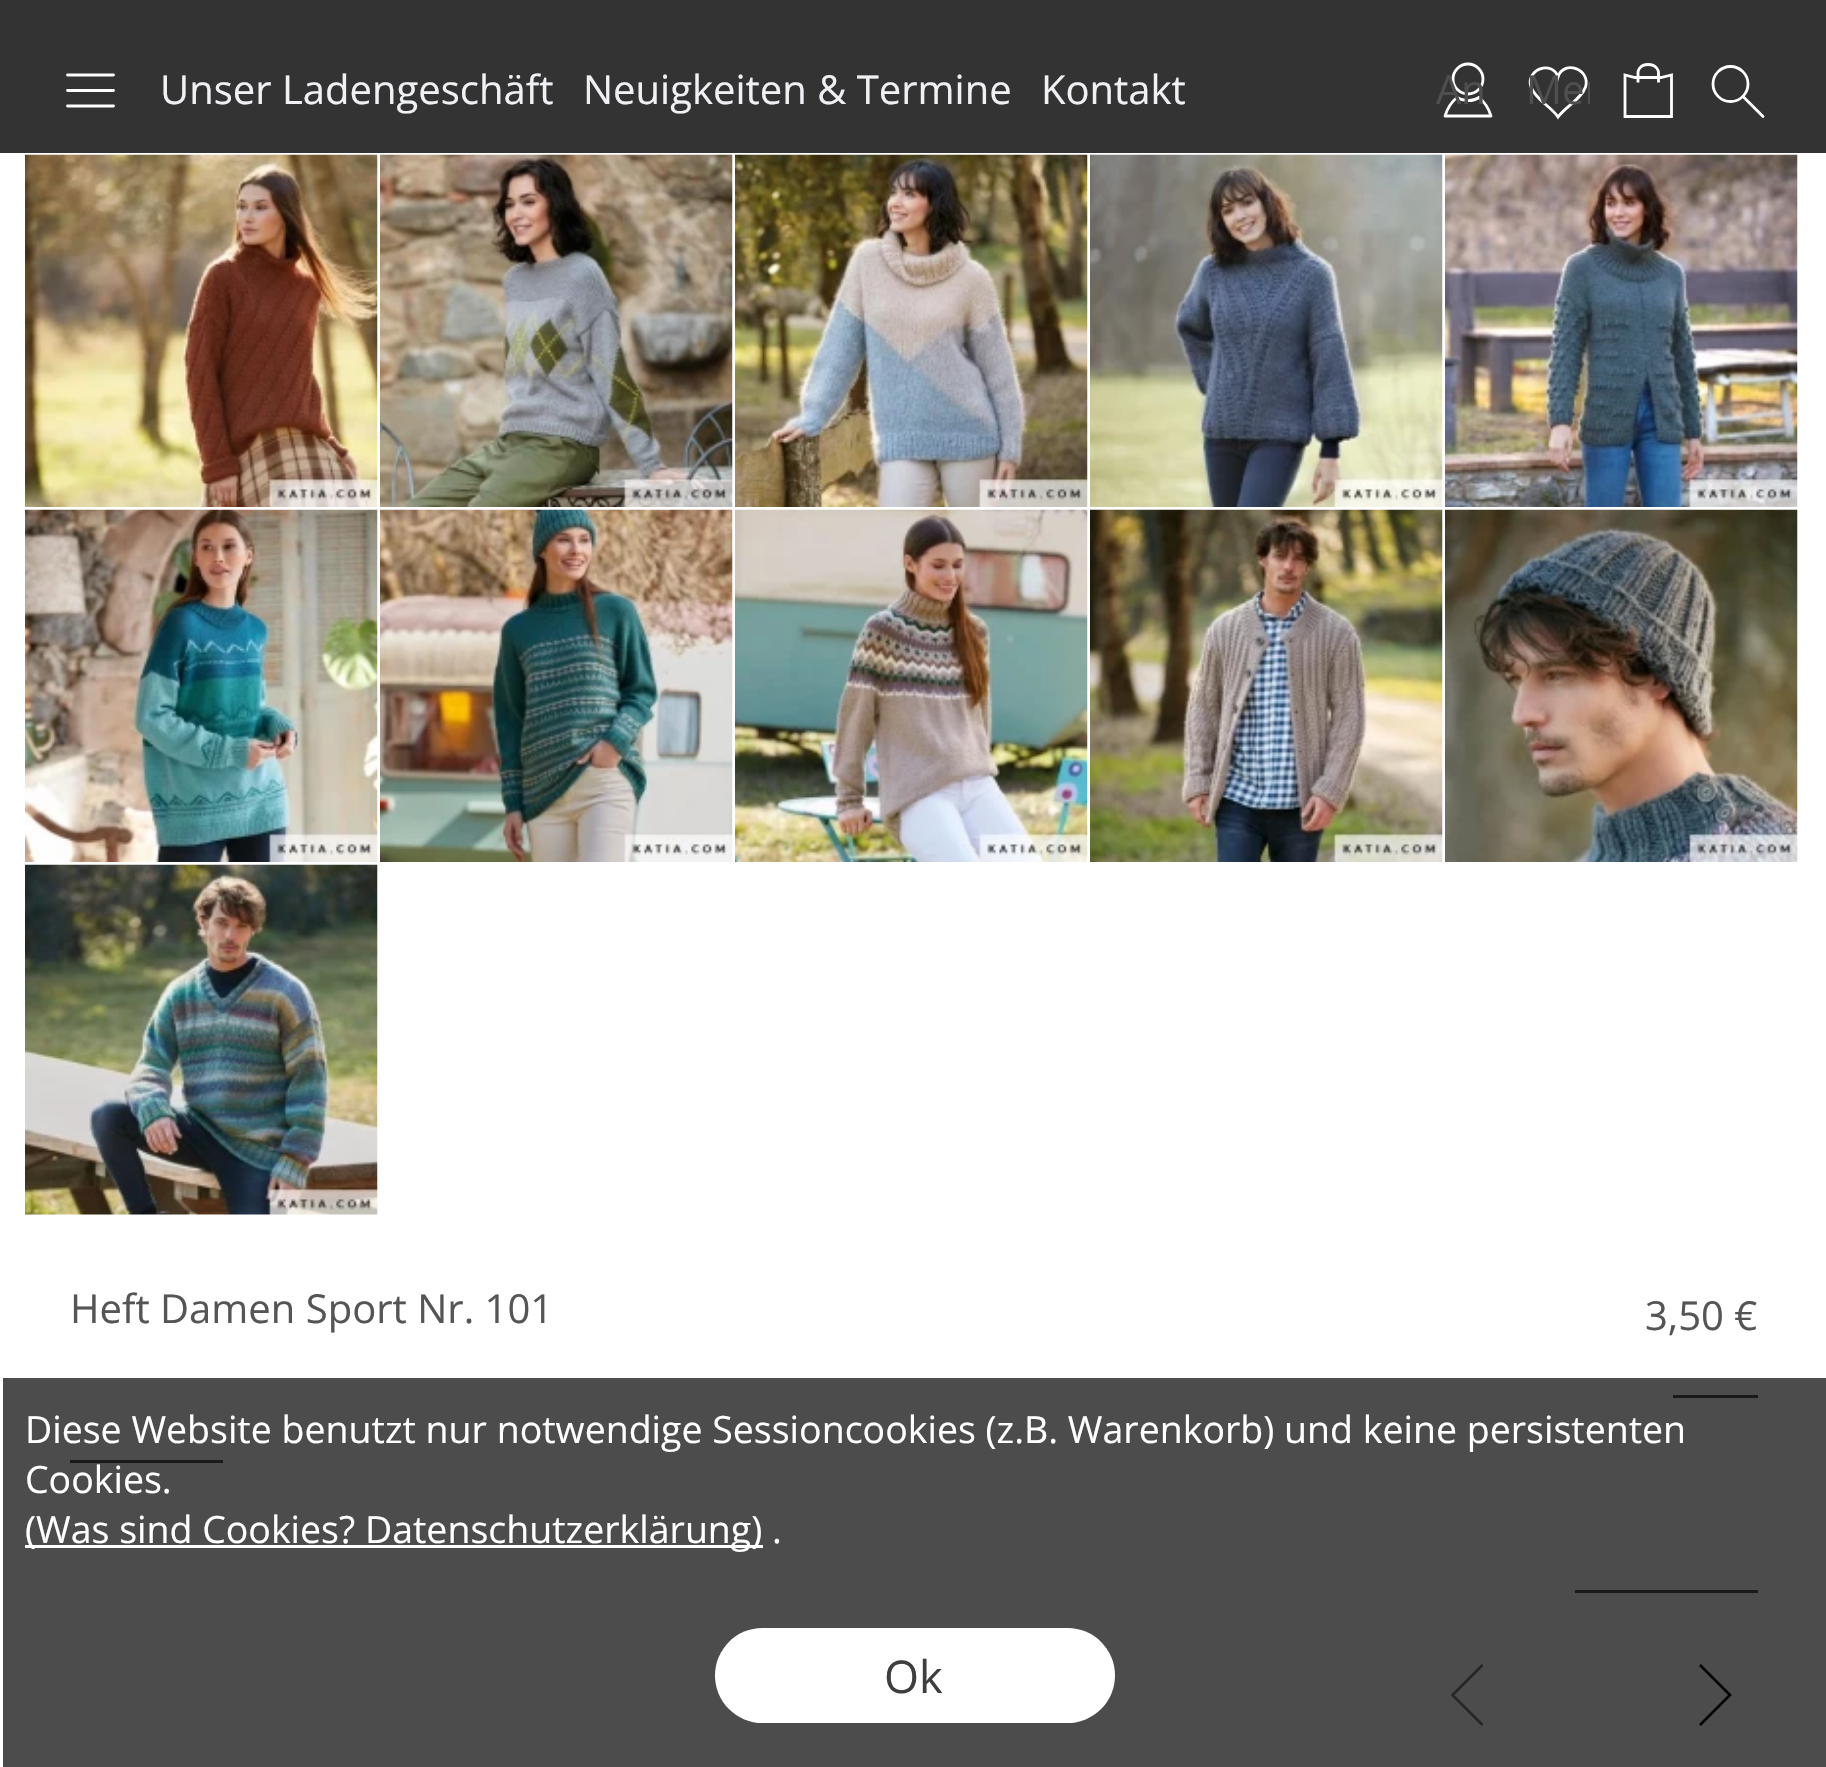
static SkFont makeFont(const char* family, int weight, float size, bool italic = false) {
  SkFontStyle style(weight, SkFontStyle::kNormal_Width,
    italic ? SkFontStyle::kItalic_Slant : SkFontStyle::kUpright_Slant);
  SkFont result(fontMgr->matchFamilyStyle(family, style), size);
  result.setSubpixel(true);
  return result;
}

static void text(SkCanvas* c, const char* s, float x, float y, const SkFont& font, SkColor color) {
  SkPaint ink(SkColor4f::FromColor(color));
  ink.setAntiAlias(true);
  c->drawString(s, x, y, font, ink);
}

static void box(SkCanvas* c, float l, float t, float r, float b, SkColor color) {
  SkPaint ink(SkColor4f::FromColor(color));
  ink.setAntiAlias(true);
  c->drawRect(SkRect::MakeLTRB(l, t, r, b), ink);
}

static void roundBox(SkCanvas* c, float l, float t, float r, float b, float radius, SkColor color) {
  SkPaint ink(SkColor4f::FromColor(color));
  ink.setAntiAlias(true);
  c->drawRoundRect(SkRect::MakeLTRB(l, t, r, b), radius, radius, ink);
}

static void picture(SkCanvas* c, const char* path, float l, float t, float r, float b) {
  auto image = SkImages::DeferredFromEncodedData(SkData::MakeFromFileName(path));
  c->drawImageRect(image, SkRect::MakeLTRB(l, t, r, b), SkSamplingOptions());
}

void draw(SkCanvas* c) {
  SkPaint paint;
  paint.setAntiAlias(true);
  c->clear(0xffffffff);
  box(c, 0, 0, 1826, 153, 0xff333333);
  paint.setStyle(SkPaint::kStroke_Style);
  paint.setStrokeWidth(2.8f);
  paint.setStrokeCap(SkPaint::kRound_Cap);
  paint.setColor(0xffffffff);
  c->drawPath(SkPathBuilder().moveTo(67.5f, 106).lineTo(113.5f, 106).moveTo(67.5f, 90.5f).lineTo(113.5f, 90.5f).moveTo(67.5f, 75).lineTo(113.5f, 75).detach(), paint);
  SkFont face1 = makeFont("Open Sans", 400, 40);
  text(c, "Unser Ladengeschäft", 160, 104, face1, 0xfff0f1f5);
  text(c, "Neuigkeiten & Termine", 583, 104, face1, 0xfff0f1f5);
  text(c, "Kontakt", 1041, 104, face1, 0xfff0f1f5);
  c->drawPath(SkPathBuilder().moveTo(1479, 97.5f).cubicTo(1472.5f, 102, 1463.5f, 101.5f, 1457, 97.5f).detach(), paint);
  paint.setStrokeCap(SkPaint::kButt_Cap);
  c->drawCircle(1468, 79, 15, paint);
  paint.setStrokeCap(SkPaint::kRound_Cap);
  c->drawPath(SkPathBuilder().moveTo(1479, 97.5f).cubicTo(1484, 101.5f, 1488.5f, 108, 1491, 116).moveTo(1445, 116).cubicTo(1447.5f, 108, 1452, 101.5f, 1457, 97.5f).moveTo(1445, 116).lineTo(1491, 116).detach(), paint);
  text(c, "An", 1436, 104, face1, 0xff4f4f4f);
  paint.setStrokeCap(SkPaint::kButt_Cap);
  c->drawPath(SkPathBuilder().moveTo(1558, 117).cubicTo(1551, 106.5f, 1535, 99, 1531, 87).cubicTo(1525, 69.5f, 1552.5f, 59.5f, 1558, 77).cubicTo(1563.5f, 59.5f, 1591, 69, 1585.5f, 87).cubicTo(1581.5f, 99, 1565.5f, 106.5f, 1558, 117).close().detach(), paint);
  c->save();
  c->clipRect(SkRect::MakeLTRB(1525, 58, 1590, 123));
  text(c, "Mer", 1526, 104, face1, 0xff4f4f4f);
  c->restore();
  c->drawPath(SkPathBuilder().moveTo(1625, 90.5f).lineTo(1625, 116.5f).lineTo(1671.5f, 116.5f).lineTo(1671.5f, 90.5f).moveTo(1638, 82.5f).lineTo(1638, 72).cubicTo(1638, 72, 1639, 64.5f, 1648, 64.5f).cubicTo(1657.5f, 64.5f, 1658.5f, 72, 1658.5f, 72).lineTo(1658.5f, 82.5f).moveTo(1671.5f, 98).lineTo(1671.5f, 75).lineTo(1661, 77.5f).lineTo(1635, 77.5f).lineTo(1625, 75).lineTo(1625, 98).detach(), paint);
  c->drawCircle(1730.5f, 84, 17.5f, paint);
  paint.setStrokeCap(SkPaint::kRound_Cap);
  c->drawPath(SkPathBuilder().moveTo(1743, 96.5f).lineTo(1763, 116.5f).detach(), paint);
  picture(c, "img_01.png", 25, 154, 378, 507);
  picture(c, "img_02.png", 380, 154, 733, 507);
  picture(c, "img_03.png", 735, 154, 1088, 507);
  picture(c, "img_04.png", 1090, 154, 1443, 507);
  picture(c, "img_05.png", 1445, 154, 1798, 507);
  picture(c, "img_06.png", 25, 509, 378, 862);
  picture(c, "img_07.png", 380, 509, 733, 862);
  picture(c, "img_08.png", 735, 509, 1088, 862);
  picture(c, "img_09.png", 1090, 509, 1443, 862);
  picture(c, "img_10.png", 1445, 509, 1798, 862);
  picture(c, "img_11.png", 25, 864, 378, 1215);
  text(c, "Heft Damen Sport Nr. 101", 70, 1323, face1, 0xff555555);
  box(c, 70, 1460, 223, 1463, 0xff555555);
  text(c, "3,50 €", 1645, 1330, face1, 0xff555555);
  box(c, 1673, 1395, 1758, 1398, 0xff555555);
  box(c, 1575, 1590, 1758, 1593, 0xff555555);
  paint.setStrokeWidth(2.6f);
  paint.setStrokeCap(SkPaint::kButt_Cap);
  paint.setColor(0xff808080);
  c->drawPath(SkPathBuilder().moveTo(1482.5f, 1665).lineTo(1452.5f, 1695).lineTo(1482.5f, 1725).detach(), paint);
  paint.setColor(0xff000000);
  c->drawPath(SkPathBuilder().moveTo(1700, 1665).lineTo(1730, 1695).lineTo(1700, 1725).detach(), paint);
  box(c, 3, 1378, 1826, 1767, 0xb3000000);
  SkFont face2 = makeFont("Open Sans", 400, 37.5f);
  text(c, "Diese Website benutzt nur notwendige Sessioncookies (z.B. Warenkorb) und keine persistenten", 25, 1443, face2, 0xffffffff);
  text(c, "Cookies.", 25, 1493, face2, 0xffffffff);
  box(c, 25, 1545, 763, 1548, 0xffffffff);
  text(c, "(Was sind Cookies? Datenschutzerklärung) .", 25, 1543, face2, 0xffffffff);
  roundBox(c, 715, 1628, 1115, 1723, 47.5f, 0xffffffff);
  SkFont face3 = makeFont("Open Sans", 400, 45);
  text(c, "Ok", 884, 1693, face3, 0xff3e3e3e);
}
